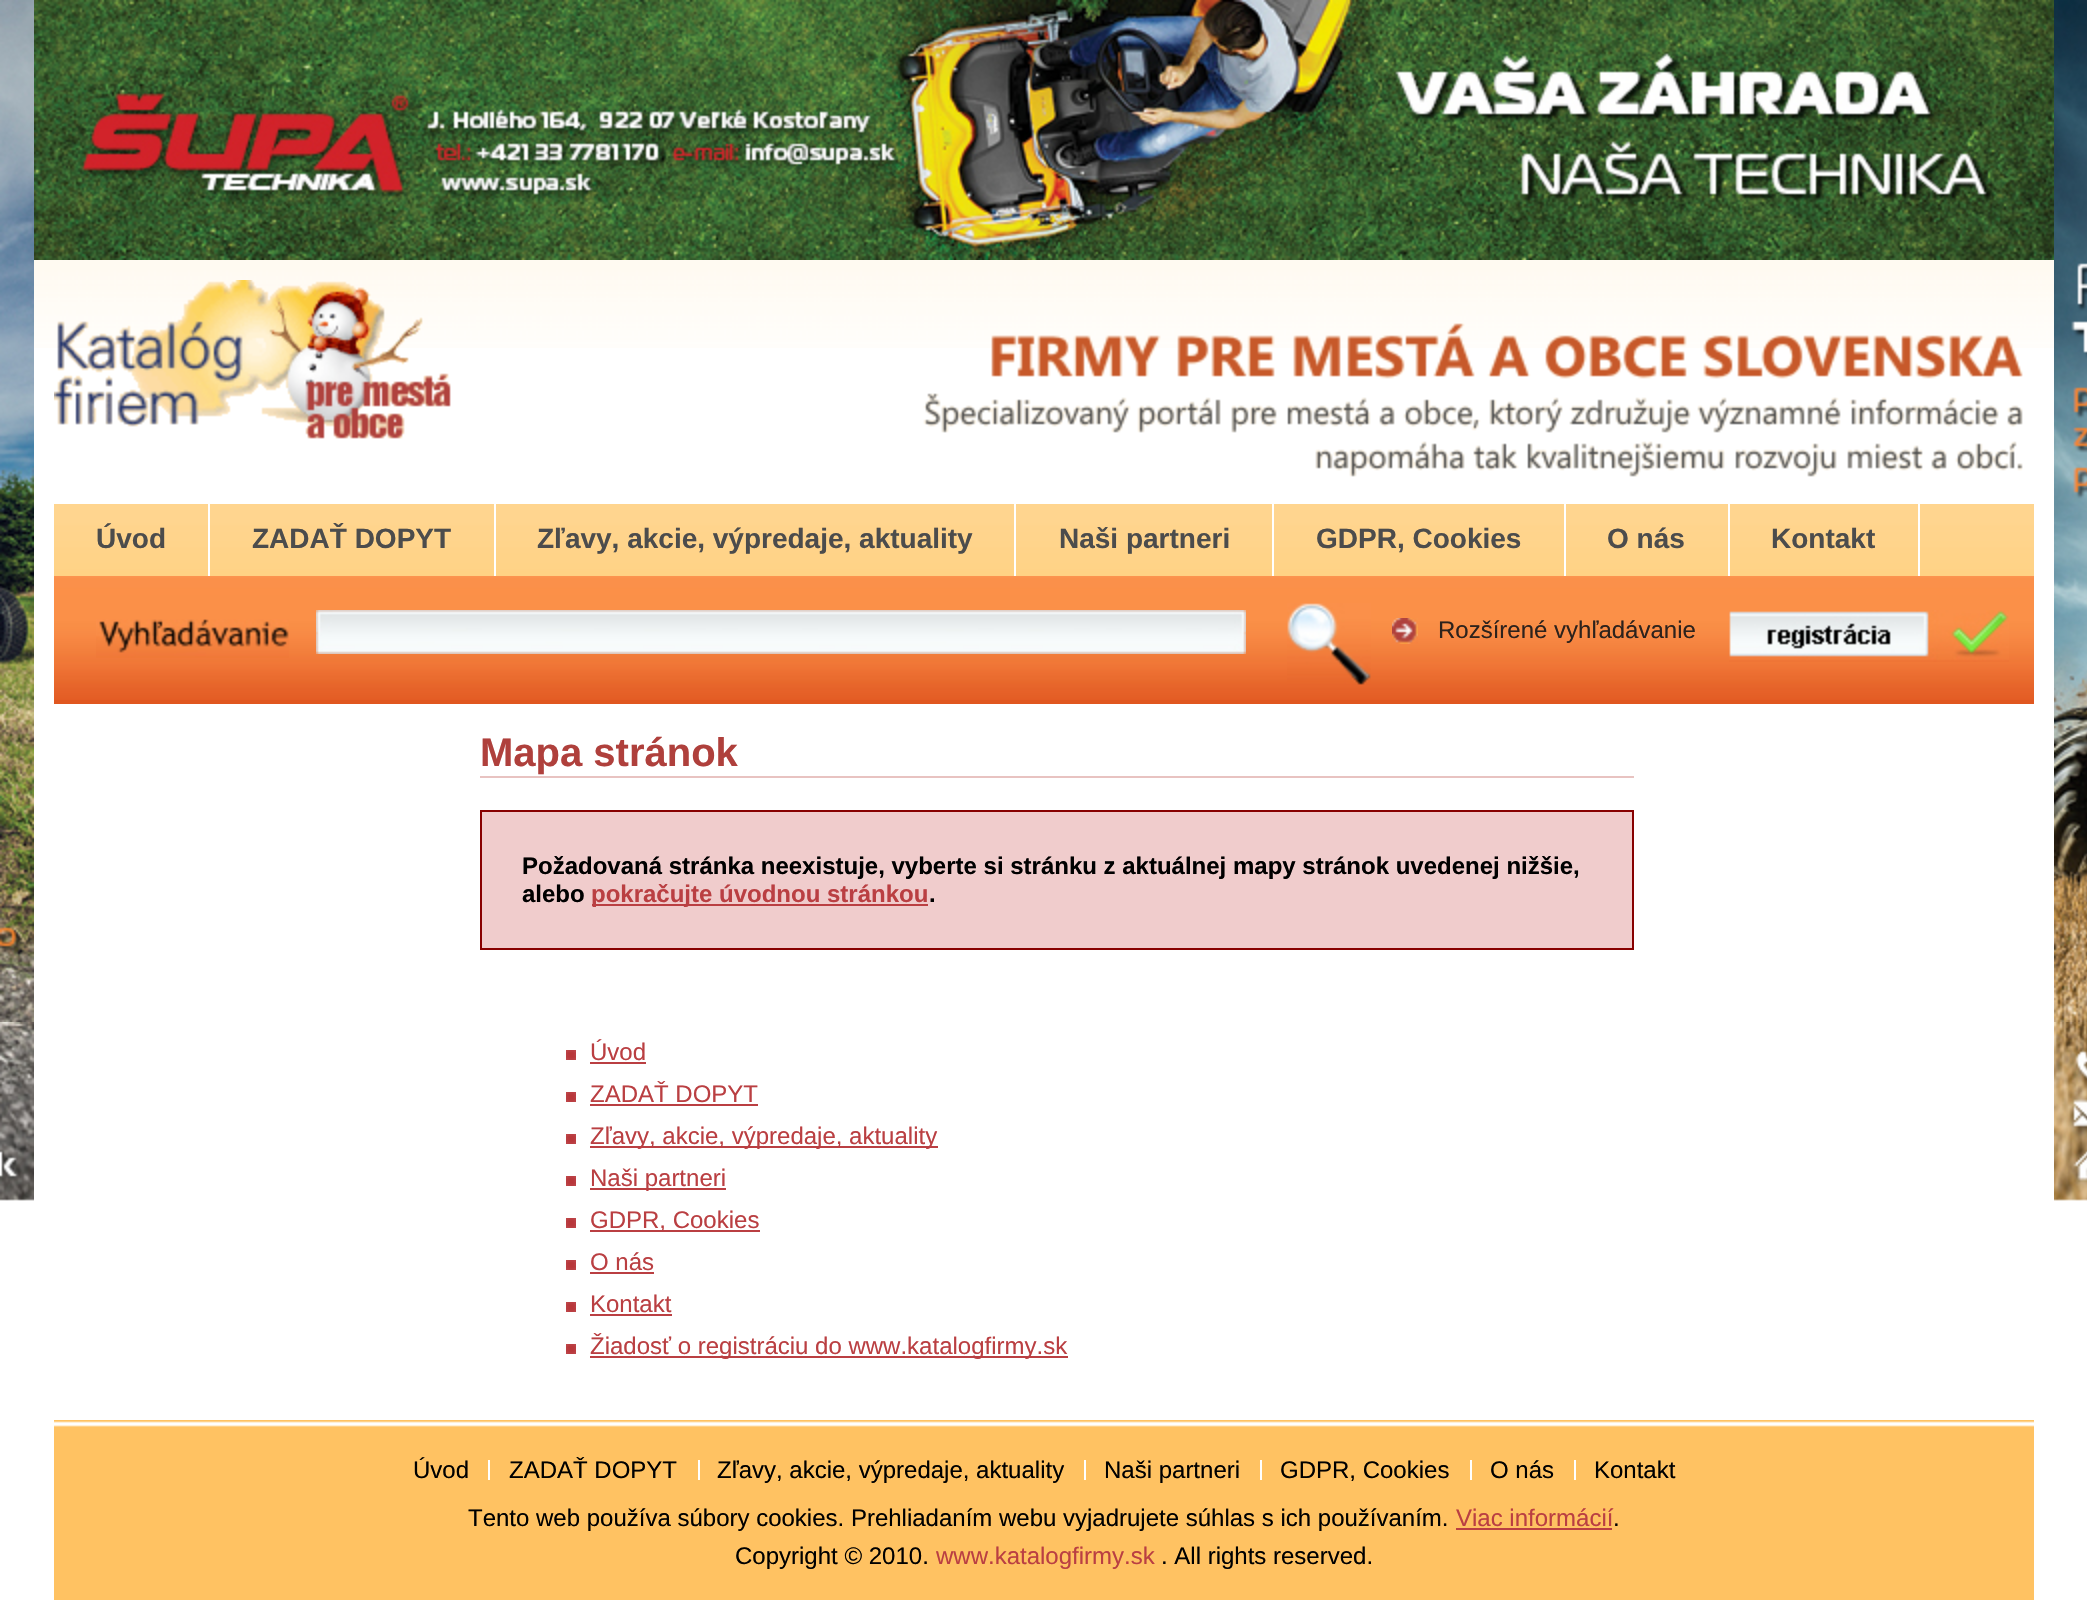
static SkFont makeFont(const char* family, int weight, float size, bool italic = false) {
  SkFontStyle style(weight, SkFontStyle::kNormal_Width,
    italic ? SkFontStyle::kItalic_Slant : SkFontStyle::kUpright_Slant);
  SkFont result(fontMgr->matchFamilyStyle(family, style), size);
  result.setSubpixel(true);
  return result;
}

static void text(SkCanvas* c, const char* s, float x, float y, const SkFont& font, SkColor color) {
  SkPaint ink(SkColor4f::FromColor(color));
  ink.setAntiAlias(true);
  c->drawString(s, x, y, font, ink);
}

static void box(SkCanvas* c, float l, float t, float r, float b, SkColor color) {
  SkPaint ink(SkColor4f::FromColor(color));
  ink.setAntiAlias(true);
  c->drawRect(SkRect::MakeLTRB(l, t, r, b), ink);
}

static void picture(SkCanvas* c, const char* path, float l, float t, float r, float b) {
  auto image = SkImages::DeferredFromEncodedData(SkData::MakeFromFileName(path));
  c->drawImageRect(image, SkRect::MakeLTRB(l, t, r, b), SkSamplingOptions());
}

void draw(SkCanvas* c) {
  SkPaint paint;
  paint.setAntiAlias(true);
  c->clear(0xffffffff);
  picture(c, "img_01.png", 34, 260, 2054, 348);
  picture(c, "img_02.png", 0, 0, 34, 1201);
  picture(c, "img_03.png", 34, 0, 2054, 260);
  picture(c, "img_04.png", 2054, 0, 2087, 1201);
  picture(c, "img_05.png", 923, 323, 2023, 477);
  picture(c, "img_06.png", 54, 280, 451, 439);
  picture(c, "img_07.png", 54, 504, 2034, 576);
  box(c, 208, 504, 210, 576, 0xffffffff);
  SkFont face1 = makeFont("Liberation Sans", 700, 28);
  text(c, "Úvod", 96, 548, face1, 0xff4c4c4c);
  box(c, 494, 504, 496, 576, 0xffffffff);
  text(c, "ZADAŤ DOPYT", 252, 548, face1, 0xff4c4c4c);
  box(c, 1014, 504, 1016, 576, 0xffffffff);
  text(c, "Zľavy, akcie, výpredaje, aktuality", 537, 548, face1, 0xff4c4c4c);
  box(c, 1272, 504, 1274, 576, 0xffffffff);
  text(c, "Naši partneri", 1059, 548, face1, 0xff4c4c4c);
  box(c, 1564, 504, 1566, 576, 0xffffffff);
  text(c, "GDPR, Cookies", 1316, 548, face1, 0xff4c4c4c);
  box(c, 1728, 504, 1730, 576, 0xffffffff);
  text(c, "O nás", 1607, 548, face1, 0xff4c4c4c);
  box(c, 1918, 504, 1920, 576, 0xffffffff);
  text(c, "Kontakt", 1771, 548, face1, 0xff4c4c4c);
  box(c, 54, 700, 2034, 704, 0xffe05720);
  picture(c, "img_08.png", 54, 576, 2034, 700);
  picture(c, "img_09.png", 96, 619, 289, 658);
  picture(c, "img_10.png", 316, 610, 1246, 654);
  picture(c, "img_11.png", 1287, 603, 1371, 685);
  picture(c, "img_12.png", 1392, 618, 1418, 644);
  SkFont face2 = makeFont("Liberation Sans", 400, 24);
  text(c, "Rozšírené vyhľadávanie", 1438, 638, face2, 0xff2d221c);
  picture(c, "img_13.png", 1729, 610, 2009, 662);
  box(c, 480, 776, 1634, 778, 0xffe8c3c1);
  SkFont face3 = makeFont("Liberation Sans", 700, 40);
  text(c, "Mapa stránok", 480, 766, face3, 0xffaf403c);
  paint.setColor(0xfff0cccc);
  c->drawRect(SkRect::MakeLTRB(481, 811, 1633, 949), paint);
  paint.setStyle(SkPaint::kStroke_Style);
  paint.setStrokeWidth(2);
  paint.setColor(0xff880000);
  c->drawRect(SkRect::MakeLTRB(481, 811, 1633, 949), paint);
  SkFont face4 = makeFont("Liberation Sans", 700, 24);
  text(c, "Požadovaná stránka neexistuje, vyberte si stránku z aktuálnej mapy stránok uvedenej nižšie,", 522, 874, face4, 0xff000000);
  text(c, "alebo", 522, 902, face4, 0xff000000);
  box(c, 592, 904, 928, 906, 0xffba3f42);
  text(c, "pokračujte úvodnou stránkou", 591, 902, face4, 0xffba3f42);
  text(c, ".", 929, 902, face4, 0xff000000);
  picture(c, "img_14.png", 566, 1050, 576, 1060);
  text(c, "Úvod", 590, 1060, face2, 0xffba3f42);
  box(c, 590, 1062, 646, 1064, 0xffba3f42);
  picture(c, "img_14.png", 566, 1092, 576, 1102);
  text(c, "ZADAŤ DOPYT", 590, 1102, face2, 0xffba3f42);
  box(c, 590, 1104, 758, 1106, 0xffba3f42);
  picture(c, "img_14.png", 566, 1134, 576, 1144);
  box(c, 590, 1146, 938, 1148, 0xffba3f42);
  text(c, "Zľavy, akcie, výpredaje, aktuality", 590, 1144, face2, 0xffba3f42);
  picture(c, "img_14.png", 566, 1176, 576, 1186);
  box(c, 590, 1188, 726, 1190, 0xffba3f42);
  text(c, "Naši partneri", 590, 1186, face2, 0xffba3f42);
  picture(c, "img_14.png", 566, 1218, 576, 1228);
  box(c, 590, 1230, 760, 1232, 0xffba3f42);
  text(c, "GDPR, Cookies", 590, 1228, face2, 0xffba3f42);
  picture(c, "img_14.png", 566, 1260, 576, 1270);
  text(c, "O nás", 590, 1270, face2, 0xffba3f42);
  box(c, 590, 1272, 654, 1274, 0xffba3f42);
  picture(c, "img_14.png", 566, 1302, 576, 1312);
  text(c, "Kontakt", 590, 1312, face2, 0xffba3f42);
  box(c, 590, 1314, 672, 1316, 0xffba3f42);
  picture(c, "img_14.png", 566, 1344, 576, 1354);
  box(c, 590, 1356, 1068, 1358, 0xffba3f42);
  text(c, "Žiadosť o registráciu do www.katalogfirmy.sk", 590, 1354, face2, 0xffba3f42);
  box(c, 54, 1420, 2034, 1600, 0xffffc262);
  picture(c, "img_15.png", 54, 1421, 2034, 1427);
  text(c, "Úvod", 413, 1478, face2, 0xff000000);
  text(c, "ZADAŤ DOPYT", 509, 1478, face2, 0xff000000);
  box(c, 488, 1460, 490, 1480, 0xffffffff);
  text(c, "Zľavy, akcie, výpredaje, aktuality", 717, 1478, face2, 0xff000000);
  box(c, 698, 1460, 700, 1480, 0xffffffff);
  text(c, "Naši partneri", 1104, 1478, face2, 0xff000000);
  box(c, 1084, 1460, 1086, 1480, 0xffffffff);
  text(c, "GDPR, Cookies", 1280, 1478, face2, 0xff000000);
  box(c, 1260, 1460, 1262, 1480, 0xffffffff);
  text(c, "O nás", 1490, 1478, face2, 0xff000000);
  box(c, 1470, 1460, 1472, 1480, 0xffffffff);
  text(c, "Kontakt", 1594, 1478, face2, 0xff000000);
  box(c, 1574, 1460, 1576, 1480, 0xffffffff);
  text(c, "Tento web používa súbory cookies. Prehliadaním webu vyjadrujete súhlas s ich používaním.", 468, 1526, face2, 0xff000000);
  text(c, "Viac informácií", 1456, 1526, face2, 0xffba3f42);
  box(c, 1456, 1528, 1612, 1530, 0xffba3f42);
  text(c, ".", 1613, 1526, face2, 0xff000000);
  text(c, "Copyright © 2010.", 735, 1564, face2, 0xff000000);
  text(c, "www.katalogfirmy.sk", 936, 1564, face2, 0xffba3f42);
  text(c, ". All rights reserved.", 1161, 1564, face2, 0xff000000);
}
